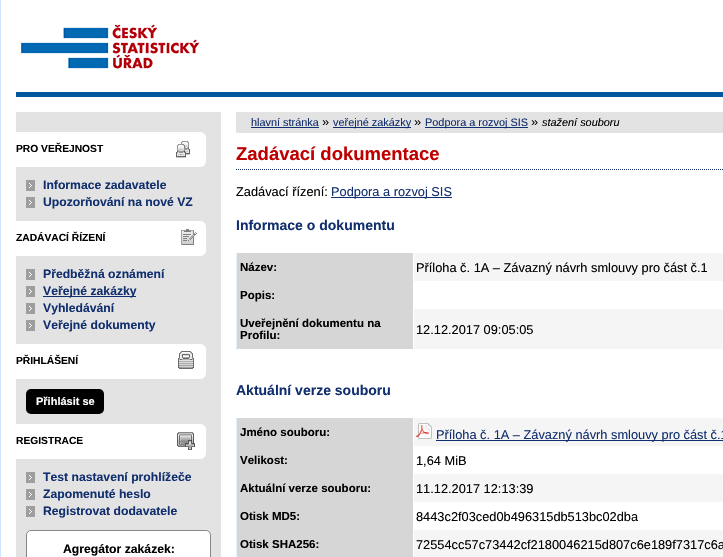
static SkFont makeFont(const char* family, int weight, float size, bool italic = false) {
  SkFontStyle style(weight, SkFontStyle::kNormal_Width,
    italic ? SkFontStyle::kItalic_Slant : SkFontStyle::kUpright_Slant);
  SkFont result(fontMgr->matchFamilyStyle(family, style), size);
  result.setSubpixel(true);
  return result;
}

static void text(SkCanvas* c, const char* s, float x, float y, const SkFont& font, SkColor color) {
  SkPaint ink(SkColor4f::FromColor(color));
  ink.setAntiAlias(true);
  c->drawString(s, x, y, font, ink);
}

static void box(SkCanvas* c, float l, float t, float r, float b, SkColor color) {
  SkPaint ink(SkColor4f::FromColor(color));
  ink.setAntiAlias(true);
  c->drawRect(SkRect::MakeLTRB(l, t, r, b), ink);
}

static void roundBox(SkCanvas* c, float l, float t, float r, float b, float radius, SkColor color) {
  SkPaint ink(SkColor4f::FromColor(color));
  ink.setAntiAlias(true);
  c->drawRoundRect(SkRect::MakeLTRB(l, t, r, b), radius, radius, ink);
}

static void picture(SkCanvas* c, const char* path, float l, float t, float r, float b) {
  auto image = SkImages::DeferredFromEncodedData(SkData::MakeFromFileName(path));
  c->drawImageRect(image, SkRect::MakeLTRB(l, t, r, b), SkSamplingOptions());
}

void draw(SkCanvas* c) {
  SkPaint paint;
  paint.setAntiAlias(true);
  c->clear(0xffcee4ff);
  picture(c, "img_01.png", 1, 0, 723, 97);
  picture(c, "img_02.png", 21, 24, 200, 69);
  box(c, 1, 97, 723, 557, 0xffffffff);
  box(c, 16, 112, 221, 557, 0xffe3e3e3);
  picture(c, "img_03.png", 16, 132, 206, 167);
  SkFont face1 = makeFont("Liberation Sans", 700, 10.25f);
  text(c, "PRO VEŘEJNOST", 16, 152, face1, 0xff000000);
  picture(c, "img_04.png", 26, 180, 35, 191);
  SkFont face2 = makeFont("Liberation Sans", 700, 12.2f);
  text(c, "Informace zadavatele", 43, 189, face2, 0xff112f6e);
  picture(c, "img_04.png", 26, 197, 35, 208);
  text(c, "Upozorňování na nové VZ", 43, 206, face2, 0xff112f6e);
  picture(c, "img_05.png", 16, 221, 206, 256);
  text(c, "ZADÁVACÍ ŘÍZENÍ", 16, 241, face1, 0xff000000);
  picture(c, "img_04.png", 26, 269, 35, 280);
  text(c, "Předběžná oznámení", 43, 278, face2, 0xff112f6e);
  picture(c, "img_04.png", 26, 286, 35, 297);
  box(c, 43, 296, 136, 297, 0xff112f6e);
  text(c, "Veřejné zakázky", 43, 295, face2, 0xff112f6e);
  picture(c, "img_04.png", 26, 303, 35, 314);
  text(c, "Vyhledávání", 43, 312, face2, 0xff112f6e);
  picture(c, "img_04.png", 26, 320, 35, 331);
  text(c, "Veřejné dokumenty", 43, 329, face2, 0xff112f6e);
  picture(c, "img_06.png", 16, 344, 206, 379);
  text(c, "PŘIHLÁŠENÍ", 16, 364, face1, 0xff000000);
  roundBox(c, 26, 389, 104, 414, 5, 0xff000000);
  SkFont face3 = makeFont("Liberation Sans", 700, 11);
  text(c, "Přihlásit se", 36, 405, face3, 0xffffffff);
  picture(c, "img_07.png", 16, 424, 206, 459);
  text(c, "REGISTRACE", 16, 444, face1, 0xff000000);
  picture(c, "img_04.png", 26, 472, 35, 483);
  text(c, "Test nastavení prohlížeče", 43, 481, face2, 0xff112f6e);
  picture(c, "img_04.png", 26, 489, 35, 500);
  text(c, "Zapomenuté heslo", 43, 498, face2, 0xff112f6e);
  picture(c, "img_04.png", 26, 506, 35, 517);
  text(c, "Registrovat dodavatele", 43, 515, face2, 0xff112f6e);
  paint.setColor(0xffffffff);
  c->drawRoundRect(SkRect::MakeLTRB(26.5f, 530.5f, 210.5f, 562.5f), 4.5f, 4.5f, paint);
  paint.setStyle(SkPaint::kStroke_Style);
  paint.setStrokeWidth(1);
  paint.setColor(0xff888888);
  c->drawRoundRect(SkRect::MakeLTRB(26.5f, 530.5f, 210.5f, 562.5f), 4.5f, 4.5f, paint);
  text(c, "Agregátor zakázek:", 63, 553, face2, 0xff000000);
  box(c, 236, 112, 723, 133, 0xffe3e3e3);
  SkFont face4 = makeFont("Liberation Sans", 400, 10.9f);
  text(c, "hlavní stránka", 251, 126, face4, 0xff112f6e);
  box(c, 251, 127, 319, 128, 0xff112f6e);
  SkFont face5 = makeFont("Liberation Sans", 400, 12.8f);
  text(c, "»", 322, 126, face5, 0xff000000);
  box(c, 333, 127, 411, 128, 0xff112f6e);
  text(c, "veřejné zakázky", 333, 126, face4, 0xff112f6e);
  text(c, "»", 414, 126, face5, 0xff000000);
  box(c, 425, 127, 528, 128, 0xff112f6e);
  text(c, "Podpora a rozvoj SIS", 425, 126, face4, 0xff112f6e);
  text(c, "»", 531, 126, face5, 0xff000000);
  SkFont face6 = makeFont("Liberation Sans", 400, 10.9f, true);
  text(c, "stažení souboru", 542, 126, face6, 0xff000000);
  paint.setColor(0xff112f6e);
  paint.setPathEffect(SkDashPathEffect::Make({{1, 1}}, 0));
  c->drawPath(SkPathBuilder().moveTo(236, 169.5f).lineTo(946, 169.5f).detach(), paint);
  paint.setPathEffect(nullptr);
  SkFont face7 = makeFont("Liberation Sans", 700, 18.5f);
  text(c, "Zadávací dokumentace", 236, 160, face7, 0xffc00000);
  text(c, "Zadávací řízení:", 236, 196, face5, 0xff000000);
  box(c, 331, 197, 452, 198, 0xff112f6e);
  text(c, "Podpora a rozvoj SIS", 331, 196, face5, 0xff112f6e);
  SkFont face8 = makeFont("Liberation Sans", 700, 14);
  text(c, "Informace o dokumentu", 236, 230, face8, 0xff112f6e);
  box(c, 414, 253, 723, 281, 0xfff5f5f5);
  box(c, 237, 253, 413, 349, 0xffd6d6d6);
  SkFont face9 = makeFont("Liberation Sans", 700, 11.5f);
  text(c, "Název:", 240, 271, face9, 0xff000000);
  text(c, "Příloha č. 1A – Závazný návrh smlouvy pro část č.1", 416, 272, face5, 0xff000000);
  text(c, "Popis:", 240, 299, face9, 0xff000000);
  box(c, 414, 309, 723, 349, 0xfff5f5f5);
  box(c, 236, 253, 237, 350, 0xffe1eefe);
  text(c, "Uveřejnění dokumentu na", 240, 327, face9, 0xff000000);
  text(c, "Profilu:", 240, 339, face9, 0xff000000);
  text(c, "12.12.2017 09:05:05", 416, 334, face5, 0xff000000);
  text(c, "Aktuální verze souboru", 236, 395, face8, 0xff112f6e);
  box(c, 414, 418, 723, 446, 0xfff5f5f5);
  box(c, 237, 418, 413, 557, 0xffd6d6d6);
  text(c, "Jméno souboru:", 240, 436, face9, 0xff000000);
  picture(c, "img_08.png", 416, 423, 432, 439);
  box(c, 436, 440, 723, 441, 0xff112f6e);
  text(c, "Příloha č. 1A – Závazný návrh smlouvy pro část č.1", 436, 439, face5, 0xff112f6e);
  text(c, "Velikost:", 240, 464, face9, 0xff000000);
  text(c, "1,64 MiB", 416, 465, face5, 0xff000000);
  box(c, 414, 474, 723, 502, 0xfff5f5f5);
  text(c, "Aktuální verze souboru:", 240, 492, face9, 0xff000000);
  text(c, "11.12.2017 12:13:39", 416, 493, face5, 0xff000000);
  text(c, "Otisk MD5:", 240, 520, face9, 0xff000000);
  text(c, "8443c2f03ced0b496315db513bc02dba", 416, 521, face5, 0xff000000);
  box(c, 414, 530, 723, 557, 0xfff5f5f5);
  box(c, 236, 418, 237, 557, 0xffe1eefe);
  text(c, "Otisk SHA256:", 240, 548, face9, 0xff000000);
  text(c, "72554cc57c73442cf2180046215d807c6e189f7317c6a", 416, 549, face5, 0xff000000);
}
